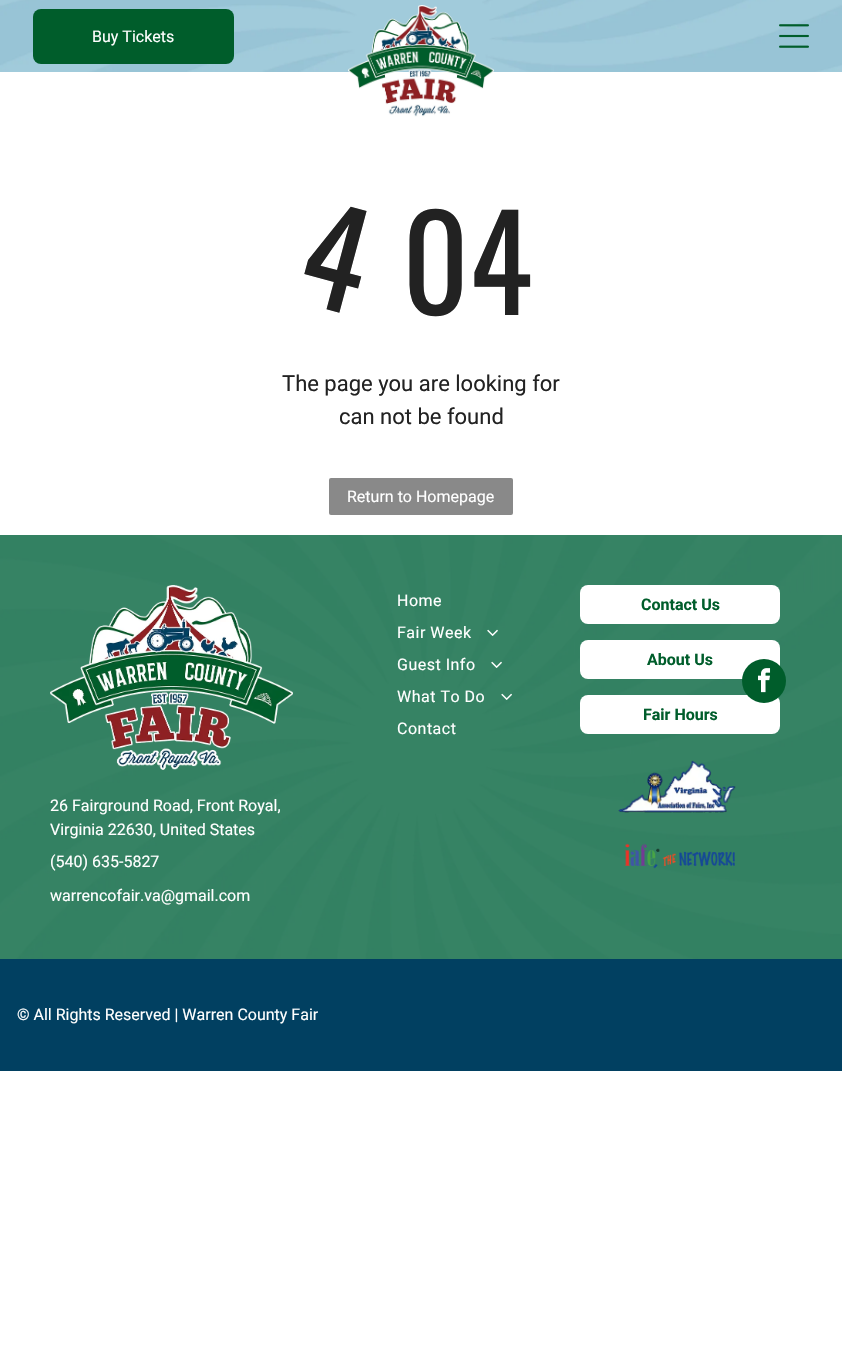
static SkFont makeFont(const char* family, int weight, float size, bool italic = false) {
  SkFontStyle style(weight, SkFontStyle::kNormal_Width,
    italic ? SkFontStyle::kItalic_Slant : SkFontStyle::kUpright_Slant);
  SkFont result(fontMgr->matchFamilyStyle(family, style), size);
  result.setSubpixel(true);
  return result;
}

static void text(SkCanvas* c, const char* s, float x, float y, const SkFont& font, SkColor color) {
  SkPaint ink(SkColor4f::FromColor(color));
  ink.setAntiAlias(true);
  c->drawString(s, x, y, font, ink);
}

static void spacedText(SkCanvas* c, const char* s, float x, float y, const SkFont& font, const SkPaint& ink, float letter, float word) {
  std::vector<SkGlyphID> glyphs(font.countText(s, strlen(s), SkTextEncoding::kUTF8));
  std::vector<float> xs(glyphs.size());
  font.textToGlyphs(s, strlen(s), SkTextEncoding::kUTF8, glyphs);
  font.getXPos(glyphs, xs, x);
  float extra = 0;
  for (size_t i = 0; i < glyphs.size(); i++) {
    xs[i] += extra;
    extra += letter + word * (glyphs[i] == font.unicharToGlyph(' '));
  }
  c->drawTextBlob(SkTextBlob::MakeFromPosHGlyphs(glyphs, xs, y, font), 0, 0, ink);
}

static void box(SkCanvas* c, float l, float t, float r, float b, SkColor color) {
  SkPaint ink(SkColor4f::FromColor(color));
  ink.setAntiAlias(true);
  c->drawRect(SkRect::MakeLTRB(l, t, r, b), ink);
}

static void roundBox(SkCanvas* c, float l, float t, float r, float b, float radius, SkColor color) {
  SkPaint ink(SkColor4f::FromColor(color));
  ink.setAntiAlias(true);
  c->drawRoundRect(SkRect::MakeLTRB(l, t, r, b), radius, radius, ink);
}

static void picture(SkCanvas* c, const char* path, float l, float t, float r, float b) {
  auto image = SkImages::DeferredFromEncodedData(SkData::MakeFromFileName(path));
  c->drawImageRect(image, SkRect::MakeLTRB(l, t, r, b), SkSamplingOptions());
}

void draw(SkCanvas* c) {
  SkPaint paint;
  paint.setAntiAlias(true);
  c->clear(0xffffffff);
  picture(c, "img_01.png", 0, 0, 842, 72);
  roundBox(c, 33, 9, 234, 64, 8, 0xff005d2b);
  SkFont face1 = makeFont("Roboto", 400, 16);
  text(c, "Buy Tickets", 92, 42, face1, 0xffffffff);
  picture(c, "img_02.png", 348, 5, 494, 117);
  picture(c, "img_03.png", 779, 24, 809, 48);
  SkFont face2 = makeFont("Oswald", 400, 130);
  c->save();
  c->rotate(15, 292, 300);
  text(c, "4", 292, 300, face2, 0xff222222);
  c->restore();
  text(c, "04", 402, 315, face2, 0xff222222);
  SkFont face3 = makeFont("Roboto", 400, 22);
  text(c, "The page you are looking for", 282, 391, face3, 0xff222222);
  text(c, "can not be found", 339, 424, face3, 0xff222222);
  roundBox(c, 329, 478, 513, 515, 2, 0xff898989);
  text(c, "Return to Homepage", 347, 502, face1, 0xffffffff);
  picture(c, "img_04.png", 0, 535, 842, 959);
  paint.setColor(0xffffffff);
  spacedText(c, "Home", 397, 606, face1, paint, 0.5f, 0);
  spacedText(c, "Fair Week", 397, 638, face1, paint, 0.5f, 0);
  picture(c, "img_05.png", 487, 629, 498, 636);
  spacedText(c, "Guest Info", 397, 670, face1, paint, 0.5f, 0);
  picture(c, "img_06.png", 491, 661, 502, 668);
  spacedText(c, "What To Do", 397, 702, face1, paint, 0.5f, 0);
  picture(c, "img_07.png", 501, 693, 512, 700);
  spacedText(c, "Contact", 397, 734, face1, paint, 0.5f, 0);
  roundBox(c, 580, 585, 780, 624, 8, 0xffffffff);
  SkFont face4 = makeFont("Roboto", 700, 16);
  text(c, "Contact Us", 641, 610, face4, 0xff005d2b);
  roundBox(c, 580, 640, 780, 679, 8, 0xffffffff);
  text(c, "About Us", 647, 665, face4, 0xff005d2b);
  roundBox(c, 580, 695, 780, 734, 8, 0xffffffff);
  text(c, "Fair Hours", 643, 720, face4, 0xff005d2b);
  picture(c, "img_08.png", 618, 760, 736, 813);
  picture(c, "img_09.png", 624, 843, 735, 869);
  picture(c, "img_10.png", 50, 585, 293, 770);
  text(c, "26 Fairground Road, Front Royal,", 50, 811, face1, 0xffffffff);
  text(c, "Virginia 22630, United States", 50, 835, face1, 0xffffffff);
  text(c, "(540) 635-5827", 50, 867, face1, 0xffffffff);
  text(c, "warrencofair.va@gmail.com", 50, 901, face1, 0xffffffff);
  box(c, 0, 959, 842, 1071, 0xff014061);
  text(c, "© All Rights Reserved | Warren County Fair", 17, 1020, face1, 0xffffffff);
  paint.setColor(0xff005d2b);
  c->drawCircle(764, 681, 22, paint);
  picture(c, "img_11.png", 758, 668, 771, 693);
}
